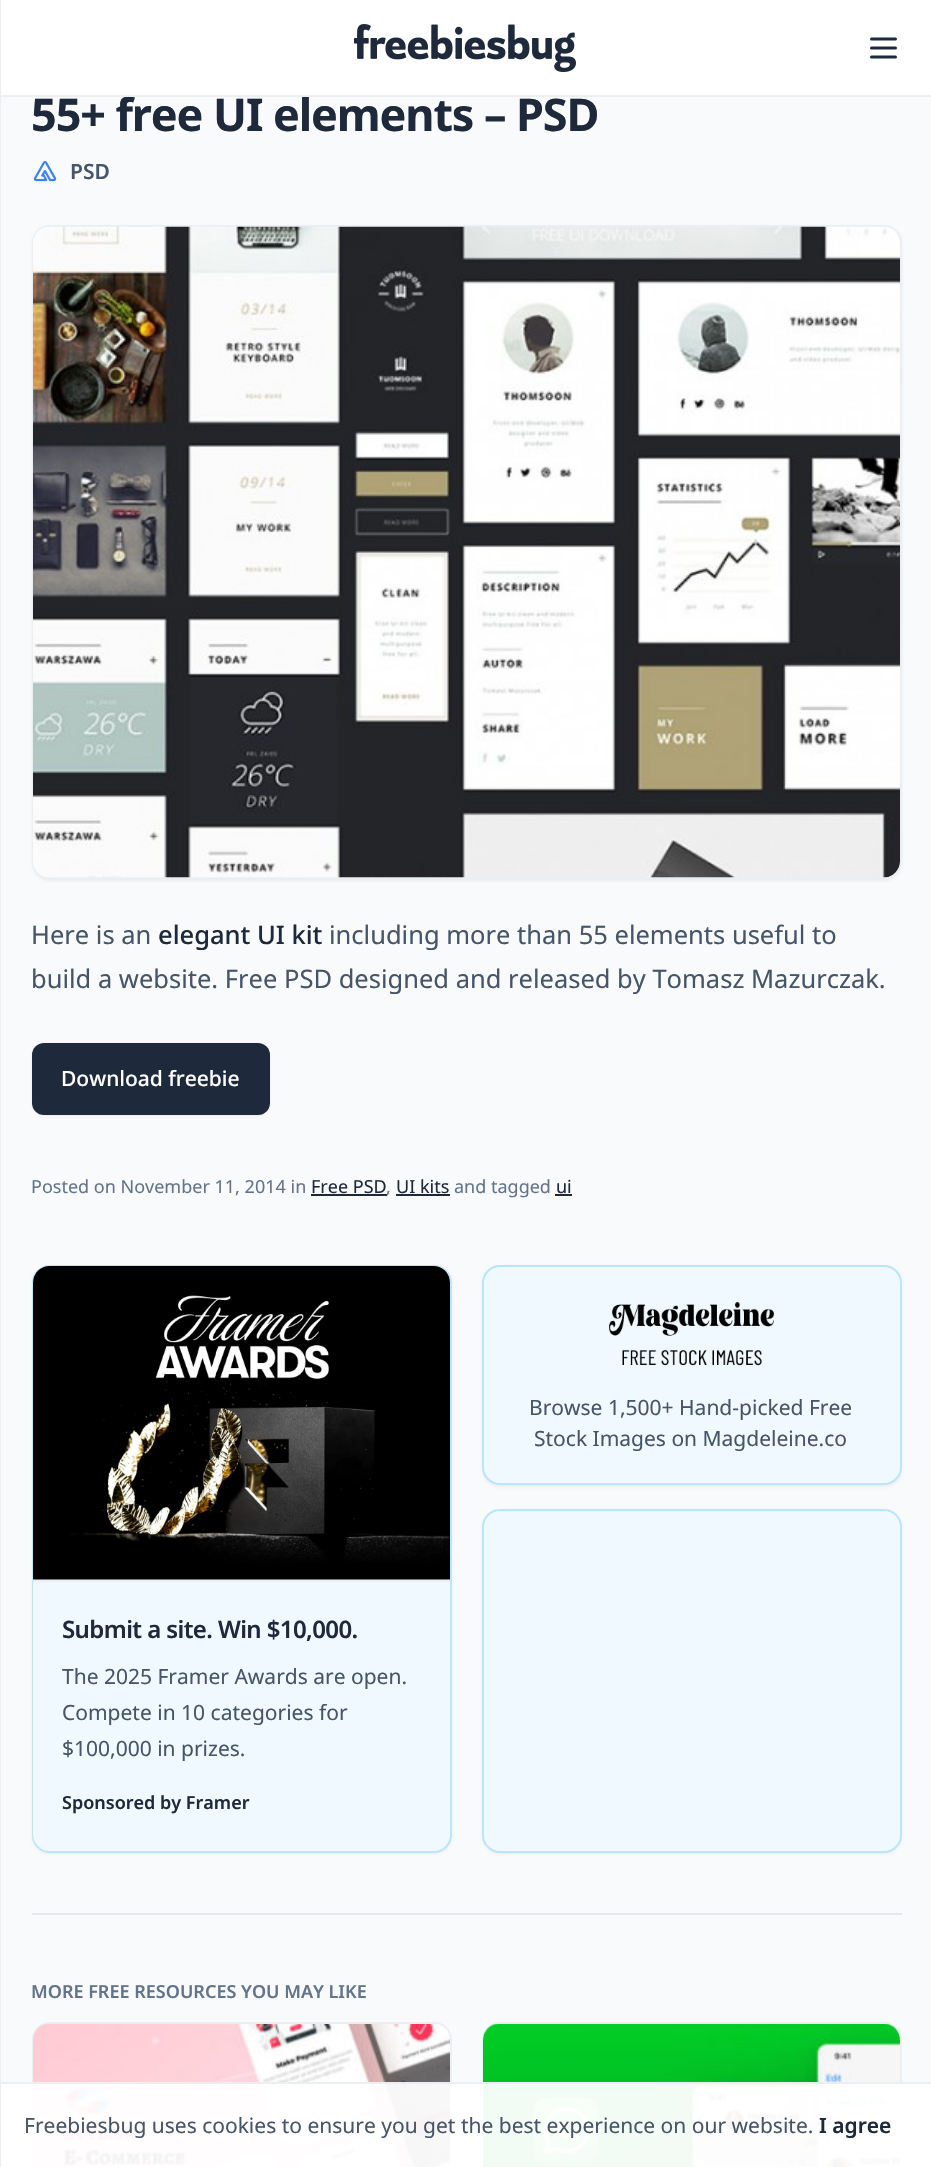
static SkFont makeFont(const char* family, int weight, float size, bool italic = false) {
  SkFontStyle style(weight, SkFontStyle::kNormal_Width,
    italic ? SkFontStyle::kItalic_Slant : SkFontStyle::kUpright_Slant);
  SkFont result(fontMgr->matchFamilyStyle(family, style), size);
  result.setSubpixel(true);
  return result;
}

static void text(SkCanvas* c, const char* s, float x, float y, const SkFont& font, SkColor color) {
  SkPaint ink(SkColor4f::FromColor(color));
  ink.setAntiAlias(true);
  c->drawString(s, x, y, font, ink);
}

static void spacedText(SkCanvas* c, const char* s, float x, float y, const SkFont& font, const SkPaint& ink, float letter, float word) {
  std::vector<SkGlyphID> glyphs(font.countText(s, strlen(s), SkTextEncoding::kUTF8));
  std::vector<float> xs(glyphs.size());
  font.textToGlyphs(s, strlen(s), SkTextEncoding::kUTF8, glyphs);
  font.getXPos(glyphs, xs, x);
  float extra = 0;
  for (size_t i = 0; i < glyphs.size(); i++) {
    xs[i] += extra;
    extra += letter + word * (glyphs[i] == font.unicharToGlyph(' '));
  }
  c->drawTextBlob(SkTextBlob::MakeFromPosHGlyphs(glyphs, xs, y, font), 0, 0, ink);
}

static void box(SkCanvas* c, float l, float t, float r, float b, SkColor color) {
  SkPaint ink(SkColor4f::FromColor(color));
  ink.setAntiAlias(true);
  c->drawRect(SkRect::MakeLTRB(l, t, r, b), ink);
}

static void roundBox(SkCanvas* c, float l, float t, float r, float b, float radius, SkColor color) {
  SkPaint ink(SkColor4f::FromColor(color));
  ink.setAntiAlias(true);
  c->drawRoundRect(SkRect::MakeLTRB(l, t, r, b), radius, radius, ink);
}

static void picture(SkCanvas* c, const char* path, float l, float t, float r, float b) {
  auto image = SkImages::DeferredFromEncodedData(SkData::MakeFromFileName(path));
  c->drawImageRect(image, SkRect::MakeLTRB(l, t, r, b), SkSamplingOptions());
}

void draw(SkCanvas* c) {
  SkPaint paint;
  paint.setAntiAlias(true);
  c->clear(0xfff8fafc);
  box(c, 1, 0, 931, 95, 0xffffffff);
  SkFont face1 = makeFont("Noto Sans", 700, 45);
  paint.setColor(0xff1e293b);
  spacedText(c, "55+ free UI elements – PSD", 31, 131, face1, paint, -1.1f, 0);
  box(c, 0, 95, 931, 97, 0xffebeff3);
  picture(c, "img_01.png", 354, 24, 576, 72);
  paint.setStyle(SkPaint::kStroke_Style);
  paint.setStrokeWidth(3);
  paint.setStrokeCap(SkPaint::kRound_Cap);
  paint.setStrokeJoin(SkPaint::kRound_Join);
  c->drawPath(SkPathBuilder().moveTo(871.5f, 39).lineTo(895.5f, 39).moveTo(871.5f, 48).lineTo(895.5f, 48).moveTo(871.5f, 57).lineTo(895.5f, 57).detach(), paint);
  paint.setStrokeWidth(2);
  paint.setStrokeCap(SkPaint::kButt_Cap);
  paint.setStrokeJoin(SkPaint::kMiter_Join);
  paint.setColor(0xffebeff3);
  c->drawRoundRect(SkRect::MakeLTRB(33, 2023, 451, 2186), 17, 17, paint);
  picture(c, "img_06.png", 33, 2024, 450, 2167);
  c->drawRoundRect(SkRect::MakeLTRB(483, 2023, 901, 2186), 17, 17, paint);
  picture(c, "img_07.png", 483, 2024, 900, 2167);
  box(c, 0, 2082, 931, 2084, 0xffebeff3);
  box(c, 0, 0, 1, 2167, 0xffebeff3);
  picture(c, "img_02.png", 33, 161, 57, 182);
  SkFont face2 = makeFont("Noto Sans", 600, 21);
  text(c, "PSD", 70, 179, face2, 0xff475569);
  paint.setStyle(SkPaint::kFill_Style);
  paint.setColor(0x0d000000);
  paint.setMaskFilter(SkMaskFilter::MakeBlur(kNormal_SkBlurStyle, 1.5f));
  c->drawRoundRect(SkRect::MakeLTRB(32, 227, 902, 881), 18, 18, paint);
  paint.setMaskFilter(nullptr);
  paint.setStyle(SkPaint::kStroke_Style);
  paint.setColor(0xffebeff3);
  c->drawRoundRect(SkRect::MakeLTRB(33, 226, 901, 878), 17, 17, paint);
  picture(c, "img_03.png", 33, 226, 900, 878);
  SkFont face3 = makeFont("Noto Sans", 400, 25.5f);
  text(c, "Here is an", 31, 944, face3, 0xff475569);
  SkFont face4 = makeFont("Noto Sans", 500, 25.5f);
  text(c, "elegant UI kit", 158, 944, face4, 0xff1e293b);
  text(c, "including more than 55 elements useful to", 329, 944, face3, 0xff475569);
  text(c, "build a website. Free PSD designed and released by Tomasz Mazurczak.", 31, 988, face3, 0xff475569);
  paint.setStyle(SkPaint::kFill_Style);
  paint.setColor(0x0d000000);
  paint.setMaskFilter(SkMaskFilter::MakeBlur(kNormal_SkBlurStyle, 1.5f));
  c->drawRoundRect(SkRect::MakeLTRB(32, 1044, 270, 1116), 12, 12, paint);
  paint.setMaskFilter(nullptr);
  roundBox(c, 32, 1043, 270, 1115, 12, 0xff1e293b);
  SkFont face5 = makeFont("Noto Sans", 500, 21);
  text(c, "Download freebie", 61, 1086, face5, 0xffffffff);
  SkFont face6 = makeFont("Noto Sans", 400, 18);
  text(c, "Posted on November 11, 2014 in", 31, 1193, face6, 0xff64748b);
  text(c, "Free PSD", 311, 1193, face6, 0xff1e293b);
  box(c, 311, 1194, 387, 1196, 0xff1e293b);
  text(c, ",", 386, 1193, face6, 0xff64748b);
  text(c, "UI kits", 396, 1193, face6, 0xff1e293b);
  box(c, 396, 1194, 450, 1196, 0xff1e293b);
  text(c, "and tagged", 454, 1193, face6, 0xff64748b);
  text(c, "ui", 556, 1193, face6, 0xff1e293b);
  box(c, 555, 1194, 572, 1196, 0xff1e293b);
  paint.setMaskFilter(SkMaskFilter::MakeBlur(kNormal_SkBlurStyle, 1.5f));
  c->drawRoundRect(SkRect::MakeLTRB(482, 1266, 902, 1487), 18, 18, paint);
  paint.setMaskFilter(nullptr);
  paint.setColor(0xfff0f9ff);
  c->drawRoundRect(SkRect::MakeLTRB(483, 1266, 901, 1484), 17, 17, paint);
  paint.setStyle(SkPaint::kStroke_Style);
  paint.setColor(0xffbae6fd);
  c->drawRoundRect(SkRect::MakeLTRB(483, 1266, 901, 1484), 17, 17, paint);
  picture(c, "img_04.png", 609, 1302, 774, 1366);
  SkFont face7 = makeFont("Noto Sans", 400, 21);
  text(c, "Browse 1,500+ Hand-picked Free", 529, 1415, face7, 0xff475569);
  text(c, "Stock Images on Magdeleine.co", 534, 1446, face7, 0xff475569);
  paint.setStyle(SkPaint::kFill_Style);
  paint.setColor(0x0d000000);
  paint.setMaskFilter(SkMaskFilter::MakeBlur(kNormal_SkBlurStyle, 1.5f));
  c->drawRoundRect(SkRect::MakeLTRB(482, 1511, 902, 1854), 18, 18, paint);
  paint.setMaskFilter(nullptr);
  paint.setColor(0xfff0f9ff);
  c->drawRoundRect(SkRect::MakeLTRB(483, 1510, 901, 1852), 17, 17, paint);
  paint.setStyle(SkPaint::kStroke_Style);
  paint.setColor(0xffbae6fd);
  c->drawRoundRect(SkRect::MakeLTRB(483, 1510, 901, 1852), 17, 17, paint);
  paint.setStyle(SkPaint::kFill_Style);
  paint.setColor(0x0d000000);
  paint.setMaskFilter(SkMaskFilter::MakeBlur(kNormal_SkBlurStyle, 1.5f));
  c->drawRoundRect(SkRect::MakeLTRB(32, 1266, 452, 1854), 18, 18, paint);
  paint.setMaskFilter(nullptr);
  paint.setStyle(SkPaint::kStroke_Style);
  paint.setColor(0xffbae6fd);
  c->drawRoundRect(SkRect::MakeLTRB(33, 1266, 451, 1852), 17, 17, paint);
  paint.setStyle(SkPaint::kFill_Style);
  paint.setColor(0xffffffff);
  c->drawPath(SkPathBuilder().moveTo(50, 1266).lineTo(433, 1266).cubicTo(442.5f, 1266, 450, 1273.5f, 450, 1283).lineTo(450, 1580).lineTo(33, 1580).lineTo(33, 1283).cubicTo(33, 1273.5f, 40.5f, 1266, 50, 1266).close().detach(), paint);
  picture(c, "img_05.png", 33, 1266, 450, 1580);
  paint.setColor(0xfff0f9ff);
  c->drawPath(SkPathBuilder().moveTo(33, 1581).lineTo(450, 1581).lineTo(450, 1834).cubicTo(450, 1843.5f, 442.5f, 1851, 433, 1851).lineTo(50, 1851).cubicTo(40.5f, 1851, 33, 1843.5f, 33, 1834).close().detach(), paint);
  box(c, 33, 1580, 450, 1582, 0xffebeff3);
  SkFont face8 = makeFont("Noto Sans", 600, 24);
  paint.setColor(0xff1e293b);
  spacedText(c, "Submit a site. Win $10,000.", 62, 1638, face8, paint, -0.6f, 0);
  text(c, "The 2025 Framer Awards are open.", 62, 1684, face7, 0xff475569);
  text(c, "Compete in 10 categories for", 62, 1720, face7, 0xff475569);
  text(c, "$100,000 in prizes.", 62, 1756, face7, 0xff475569);
  SkFont face9 = makeFont("Noto Sans", 600, 18);
  text(c, "Sponsored by Framer", 62, 1809, face9, 0xff1e293b);
  box(c, 32, 1913, 902, 1915, 0xffe2e8f0);
  text(c, "MORE FREE RESOURCES YOU MAY LIKE", 31, 1998, face9, 0xff64748b);
  box(c, 1, 2084, 931, 2167, 0xf2ffffff);
  text(c, "Freebiesbug uses cookies to ensure you get the best experience on our website.", 24, 2133, face7, 0xff475569);
  text(c, "I agree", 819, 2133, face2, 0xff1e293b);
}
